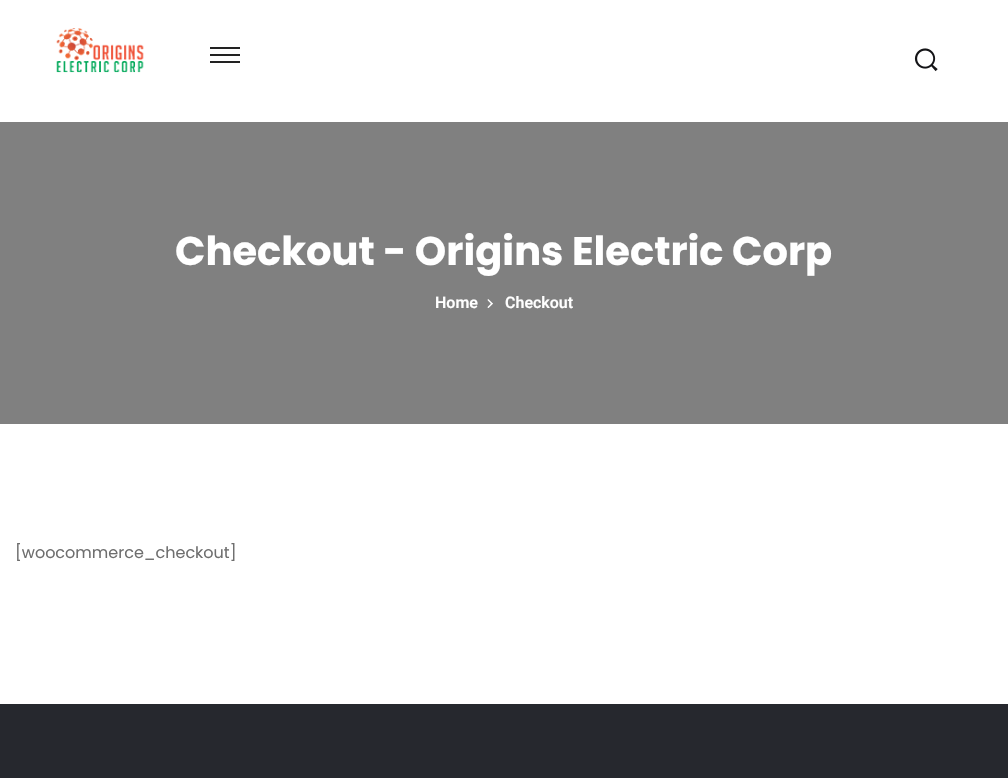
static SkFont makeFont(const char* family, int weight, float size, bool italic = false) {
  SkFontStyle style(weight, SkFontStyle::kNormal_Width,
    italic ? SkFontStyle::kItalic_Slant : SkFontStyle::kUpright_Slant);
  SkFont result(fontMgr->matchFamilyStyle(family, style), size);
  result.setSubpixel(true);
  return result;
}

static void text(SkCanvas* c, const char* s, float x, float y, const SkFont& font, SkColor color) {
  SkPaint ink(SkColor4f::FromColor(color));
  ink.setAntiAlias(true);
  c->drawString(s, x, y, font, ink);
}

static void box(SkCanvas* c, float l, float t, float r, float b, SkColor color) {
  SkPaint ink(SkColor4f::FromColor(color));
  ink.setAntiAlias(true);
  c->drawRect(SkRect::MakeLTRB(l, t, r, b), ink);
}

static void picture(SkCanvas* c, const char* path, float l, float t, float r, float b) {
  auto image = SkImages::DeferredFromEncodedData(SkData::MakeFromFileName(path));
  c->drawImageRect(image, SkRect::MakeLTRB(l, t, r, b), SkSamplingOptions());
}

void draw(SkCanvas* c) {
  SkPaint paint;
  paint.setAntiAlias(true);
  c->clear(0xffffffff);
  picture(c, "img_01.png", 56, 28, 144, 73);
  box(c, 210, 47, 240, 49, 0xff222222);
  box(c, 210, 54, 240, 56, 0xff222222);
  box(c, 210, 61, 240, 63, 0xff222222);
  picture(c, "img_02.png", 914, 48, 938, 72);
  box(c, 0, 122, 1008, 424, 0xff808080);
  SkFont face1 = makeFont("Poppins", 700, 40);
  text(c, "Checkout - Origins Electric Corp", 175, 265, face1, 0xffffffff);
  SkFont face2 = makeFont("Roboto", 600, 16);
  text(c, "Home", 435, 308, face2, 0xffffffff);
  picture(c, "img_03.png", 487, 299, 493, 308);
  text(c, "Checkout", 505, 308, face2, 0xffffffff);
  SkFont face3 = makeFont("Poppins", 400, 16);
  text(c, "[woocommerce_checkout]", 15, 558, face3, 0xff6e6e6e);
  box(c, 0, 704, 1008, 778, 0xff26282e);
}
